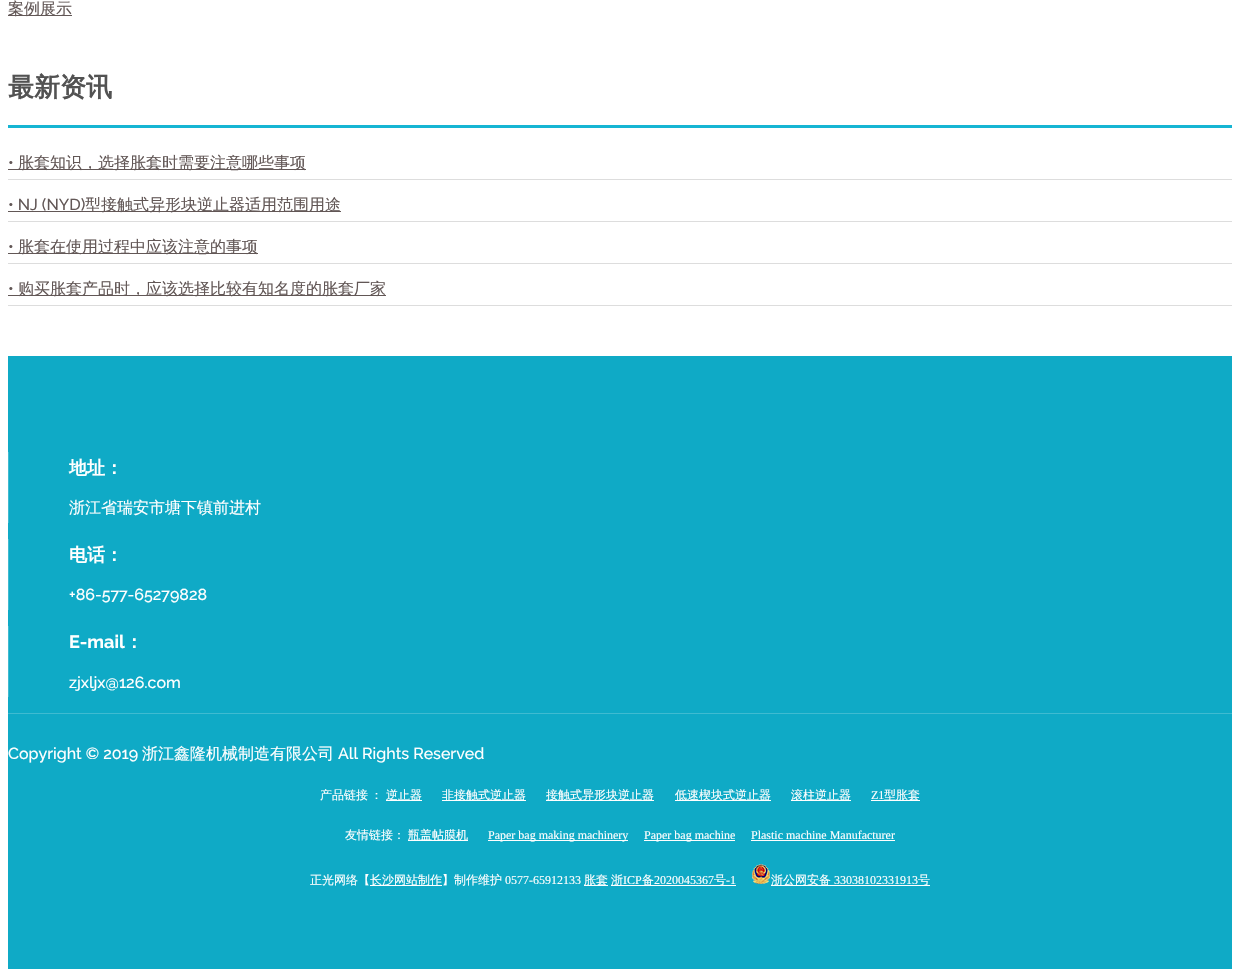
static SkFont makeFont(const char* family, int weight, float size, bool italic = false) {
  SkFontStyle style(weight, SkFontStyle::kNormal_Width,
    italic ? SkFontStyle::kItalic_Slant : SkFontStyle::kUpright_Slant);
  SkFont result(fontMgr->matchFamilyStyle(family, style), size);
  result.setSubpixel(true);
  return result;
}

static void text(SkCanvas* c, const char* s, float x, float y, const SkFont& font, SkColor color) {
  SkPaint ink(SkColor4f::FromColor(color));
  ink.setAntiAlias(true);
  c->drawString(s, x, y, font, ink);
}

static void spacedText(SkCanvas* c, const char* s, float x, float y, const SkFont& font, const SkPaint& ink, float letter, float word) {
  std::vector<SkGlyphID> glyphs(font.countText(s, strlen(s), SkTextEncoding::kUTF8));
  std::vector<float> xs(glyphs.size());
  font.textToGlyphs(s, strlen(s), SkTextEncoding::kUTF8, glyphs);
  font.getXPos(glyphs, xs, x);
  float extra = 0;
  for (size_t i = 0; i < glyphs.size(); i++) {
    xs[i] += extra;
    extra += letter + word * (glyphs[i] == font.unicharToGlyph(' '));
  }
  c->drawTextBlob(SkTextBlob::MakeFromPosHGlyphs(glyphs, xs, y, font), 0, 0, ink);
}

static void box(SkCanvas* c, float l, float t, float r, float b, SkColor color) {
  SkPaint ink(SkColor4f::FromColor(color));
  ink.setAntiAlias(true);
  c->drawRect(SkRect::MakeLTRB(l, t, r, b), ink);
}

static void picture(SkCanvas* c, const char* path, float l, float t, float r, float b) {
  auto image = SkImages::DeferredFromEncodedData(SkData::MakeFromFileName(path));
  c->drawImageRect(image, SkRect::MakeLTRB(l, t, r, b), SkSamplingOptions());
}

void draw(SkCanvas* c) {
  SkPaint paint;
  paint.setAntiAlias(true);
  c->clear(0xffffffff);
  box(c, 8, 15, 72, 16, 0xff625756);
  SkFont face1 = makeFont("WenQuanYi Zen Hei", 500, 16);
  text(c, "案例展示", 8, 14, face1, 0xff625756);
  box(c, 8, 125, 1232, 128, 0xff16b5d3);
  SkFont face2 = makeFont("WenQuanYi Zen Hei", 700, 26);
  text(c, "最新资讯", 8, 96, face2, 0xff525252);
  box(c, 8, 179, 1232, 180, 0xffdddddd);
  SkFont face3 = makeFont("Raleway", 500, 16);
  text(c, "•", 8, 168, face3, 0xff625756);
  box(c, 8, 169, 306, 170, 0xff625756);
  text(c, "胀套知识，选择胀套时需要注意哪些事项", 18, 168, face1, 0xff625756);
  box(c, 8, 221, 1232, 222, 0xffdddddd);
  text(c, "• NJ (NYD)", 8, 210, face3, 0xff625756);
  box(c, 8, 211, 341, 212, 0xff625756);
  text(c, "型接触式异形块逆止器适用范围用途", 85, 210, face1, 0xff625756);
  box(c, 8, 263, 1232, 264, 0xffdddddd);
  text(c, "•", 8, 252, face3, 0xff625756);
  box(c, 8, 253, 258, 254, 0xff625756);
  text(c, "胀套在使用过程中应该注意的事项", 18, 252, face1, 0xff625756);
  box(c, 8, 305, 1232, 306, 0xffdddddd);
  text(c, "•", 8, 294, face3, 0xff625756);
  box(c, 8, 295, 386, 296, 0xff625756);
  text(c, "购买胀套产品时，应该选择比较有知名度的胀套厂家", 18, 294, face1, 0xff625756);
  box(c, 8, 356, 1232, 969, 0xff0faac6);
  box(c, 8, 452, 9, 523, 0xff3fbbd1);
  SkFont face4 = makeFont("WenQuanYi Zen Hei", 700, 18);
  text(c, "地址：", 69, 474, face4, 0xffffffff);
  text(c, "浙江省瑞安市塘下镇前进村", 69, 513, face1, 0xffffffff);
  box(c, 8, 539, 9, 610, 0xff3fbbd1);
  text(c, "电话：", 69, 561, face4, 0xffffffff);
  text(c, "+86-577-65279828", 69, 600, face3, 0xffffffff);
  box(c, 8, 626, 9, 697, 0xff3fbbd1);
  SkFont face5 = makeFont("Raleway", 700, 18);
  text(c, "E-mail", 69, 648, face5, 0xffffffff);
  text(c, "：", 125, 648, face4, 0xffffffff);
  text(c, "zjxljx@126.com", 69, 688, face3, 0xffffffff);
  box(c, 8, 713, 1232, 714, 0xff3fbbd1);
  text(c, "Copyright © 2019", 8, 759, face3, 0xffffffff);
  text(c, "浙江鑫隆机械制造有限公司", 142, 759, face1, 0xffffffff);
  text(c, "All Rights Reserved", 338, 759, face3, 0xffffffff);
  SkFont face6 = makeFont("WenQuanYi Zen Hei", 500, 12);
  paint.setColor(0xffffffff);
  spacedText(c, "产品链接 ：", 320, 799, face6, paint, 0, -1);
  box(c, 386, 800, 422, 801, 0xffffffff);
  text(c, "逆止器", 386, 799, face6, 0xffffffff);
  box(c, 442, 800, 526, 801, 0xffffffff);
  text(c, "非接触式逆止器", 442, 799, face6, 0xffffffff);
  box(c, 546, 800, 654, 801, 0xffffffff);
  text(c, "接触式异形块逆止器", 546, 799, face6, 0xffffffff);
  box(c, 675, 800, 771, 801, 0xffffffff);
  text(c, "低速楔块式逆止器", 675, 799, face6, 0xffffffff);
  box(c, 791, 800, 851, 801, 0xffffffff);
  text(c, "滚柱逆止器", 791, 799, face6, 0xffffffff);
  SkFont face7 = makeFont("Liberation Serif", 400, 12);
  text(c, "Z1", 871, 799, face7, 0xffffffff);
  box(c, 871, 800, 920, 801, 0xffffffff);
  text(c, "型胀套", 884, 799, face6, 0xffffffff);
  text(c, "友情链接：", 345, 839, face6, 0xffffffff);
  box(c, 408, 840, 468, 841, 0xffffffff);
  text(c, "瓶盖帖膜机", 408, 839, face6, 0xffffffff);
  box(c, 488, 840, 628, 841, 0xffffffff);
  text(c, "Paper bag making machinery", 488, 839, face7, 0xffffffff);
  box(c, 644, 840, 735, 841, 0xffffffff);
  text(c, "Paper bag machine", 644, 839, face7, 0xffffffff);
  text(c, "Plastic machine Manufacturer", 751, 839, face7, 0xffffffff);
  box(c, 751, 840, 895, 841, 0xffffffff);
  text(c, "正光网络【", 310, 884, face6, 0xffffffff);
  box(c, 370, 885, 442, 886, 0xffffffff);
  text(c, "长沙网站制作】制作维护", 370, 884, face6, 0xffffffff);
  text(c, "0577-65912133", 505, 884, face7, 0xffffffff);
  box(c, 584, 885, 608, 886, 0xffffffff);
  text(c, "胀套", 584, 884, face6, 0xffffffff);
  box(c, 611, 885, 736, 886, 0xffffffff);
  text(c, "浙", 611, 884, face6, 0xffffffff);
  text(c, "ICP", 623, 884, face7, 0xffffffff);
  text(c, "备", 642, 884, face6, 0xffffffff);
  text(c, "2020045367", 654, 884, face7, 0xffffffff);
  text(c, "号", 714, 884, face6, 0xffffffff);
  text(c, "-1", 726, 884, face7, 0xffffffff);
  picture(c, "img_01.png", 752, 864, 770, 884);
  box(c, 771, 885, 930, 886, 0xffffffff);
  text(c, "浙公网安备", 771, 884, face6, 0xffffffff);
  text(c, "33038102331913", 834, 884, face7, 0xffffffff);
  text(c, "号", 918, 884, face6, 0xffffffff);
}
